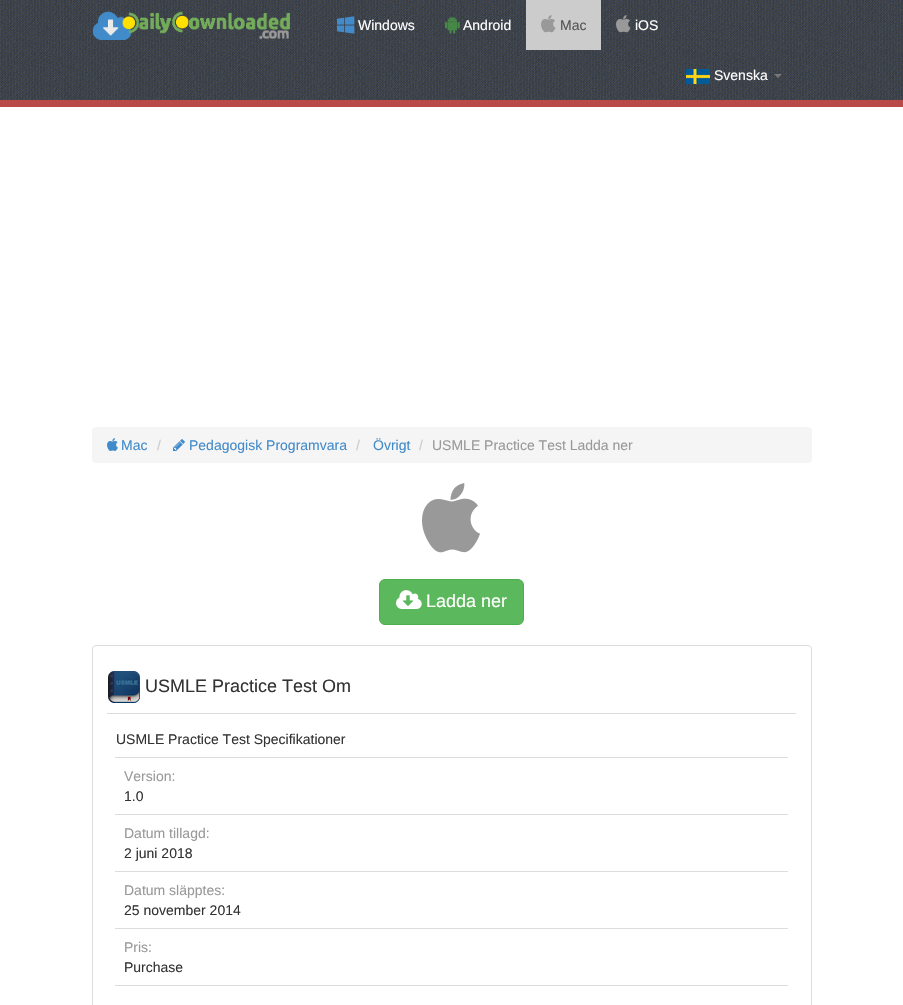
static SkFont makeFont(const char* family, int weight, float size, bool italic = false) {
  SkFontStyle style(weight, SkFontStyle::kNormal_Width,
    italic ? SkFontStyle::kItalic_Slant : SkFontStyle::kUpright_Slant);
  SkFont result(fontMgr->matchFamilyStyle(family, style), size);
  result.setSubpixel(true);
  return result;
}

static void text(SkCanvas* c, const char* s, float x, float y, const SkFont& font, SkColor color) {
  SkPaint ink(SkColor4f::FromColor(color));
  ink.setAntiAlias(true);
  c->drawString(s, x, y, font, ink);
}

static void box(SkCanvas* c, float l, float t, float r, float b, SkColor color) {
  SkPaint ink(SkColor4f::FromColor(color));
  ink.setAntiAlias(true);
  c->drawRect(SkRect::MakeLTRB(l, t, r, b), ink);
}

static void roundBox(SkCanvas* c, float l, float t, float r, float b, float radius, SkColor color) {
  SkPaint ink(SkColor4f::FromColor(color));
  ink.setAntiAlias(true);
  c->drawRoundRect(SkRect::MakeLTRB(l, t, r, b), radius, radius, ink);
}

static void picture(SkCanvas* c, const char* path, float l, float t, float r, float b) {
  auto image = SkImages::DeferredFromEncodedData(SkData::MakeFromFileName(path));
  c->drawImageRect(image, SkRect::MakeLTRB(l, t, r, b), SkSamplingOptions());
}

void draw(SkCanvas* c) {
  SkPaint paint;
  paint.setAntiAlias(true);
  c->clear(0xffffffff);
  picture(c, "img_01.png", 0, 0, 903, 100);
  box(c, 0, 100, 903, 107, 0xffb94a48);
  picture(c, "img_02.png", 92, 11, 290, 40);
  picture(c, "img_03.png", 337, 16, 355, 34);
  SkFont face1 = makeFont("Liberation Sans", 400, 14);
  text(c, "Windows", 358, 30, face1, 0xffffffff);
  picture(c, "img_04.png", 445, 16, 460, 34);
  text(c, "Android", 463, 30, face1, 0xffffffff);
  box(c, 526, 0, 601, 50, 0xffcccccc);
  picture(c, "img_05.png", 541, 15, 556, 33);
  text(c, "Mac", 560, 30, face1, 0xff555555);
  picture(c, "img_06.png", 616, 15, 631, 33);
  text(c, "iOS", 635, 30, face1, 0xffffffff);
  picture(c, "img_07.png", 686, 69, 710, 84);
  text(c, "Svenska", 714, 80, face1, 0xffffffff);
  paint.setColor(0xff777777);
  c->drawPath(SkPathBuilder().moveTo(774, 74).lineTo(782, 74).lineTo(778, 78).close().detach(), paint);
  roundBox(c, 92, 427, 812, 463, 4, 0xfff5f5f5);
  picture(c, "img_08.png", 107, 438, 118, 451);
  text(c, "Mac", 121, 450, face1, 0xff428bca);
  text(c, "/", 157, 450, face1, 0xffcccccc);
  picture(c, "img_09.png", 173, 439, 185, 451);
  text(c, "Pedagogisk Programvara", 189, 450, face1, 0xff428bca);
  text(c, "/", 356, 450, face1, 0xffcccccc);
  text(c, "Övrigt", 373, 450, face1, 0xff428bca);
  text(c, "/", 419, 450, face1, 0xffcccccc);
  text(c, "USMLE Practice Test Ladda ner", 432, 450, face1, 0xff999999);
  picture(c, "img_10.png", 422, 483, 480, 553);
  paint.setColor(0xff5cb85c);
  c->drawRoundRect(SkRect::MakeLTRB(379.5f, 579.5f, 523.5f, 624.5f), 5.5f, 5.5f, paint);
  paint.setStyle(SkPaint::kStroke_Style);
  paint.setStrokeWidth(1);
  paint.setColor(0xff4cae4c);
  c->drawRoundRect(SkRect::MakeLTRB(379.5f, 579.5f, 523.5f, 624.5f), 5.5f, 5.5f, paint);
  picture(c, "img_11.png", 396, 590, 422, 609);
  SkFont face2 = makeFont("Liberation Sans", 400, 18);
  text(c, "Ladda ner", 426, 607, face2, 0xffffffff);
  paint.setColor(0xffdddddd);
  c->drawRoundRect(SkRect::MakeLTRB(92.5f, 645.5f, 811.5f, 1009.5f), 3.5f, 3.5f, paint);
  picture(c, "img_12.png", 108, 671, 140, 703);
  text(c, "USMLE Practice Test Om", 145, 692, face2, 0xff333333);
  box(c, 107, 713, 796, 714, 0xffdddddd);
  text(c, "USMLE Practice Test Specifikationer", 116, 744, face1, 0xff333333);
  box(c, 115, 757, 788, 758, 0xffdddddd);
  text(c, "Version:", 124, 781, face1, 0xff999999);
  text(c, "1.0", 124, 801, face1, 0xff333333);
  box(c, 115, 814, 788, 815, 0xffdddddd);
  text(c, "Datum tillagd:", 124, 838, face1, 0xff999999);
  text(c, "2 juni 2018", 124, 858, face1, 0xff333333);
  box(c, 115, 871, 788, 872, 0xffdddddd);
  text(c, "Datum släpptes:", 124, 895, face1, 0xff999999);
  text(c, "25 november 2014", 124, 915, face1, 0xff333333);
  box(c, 115, 928, 788, 929, 0xffdddddd);
  text(c, "Pris:", 124, 952, face1, 0xff999999);
  text(c, "Purchase", 124, 972, face1, 0xff333333);
  box(c, 115, 985, 788, 986, 0xffdddddd);
}
